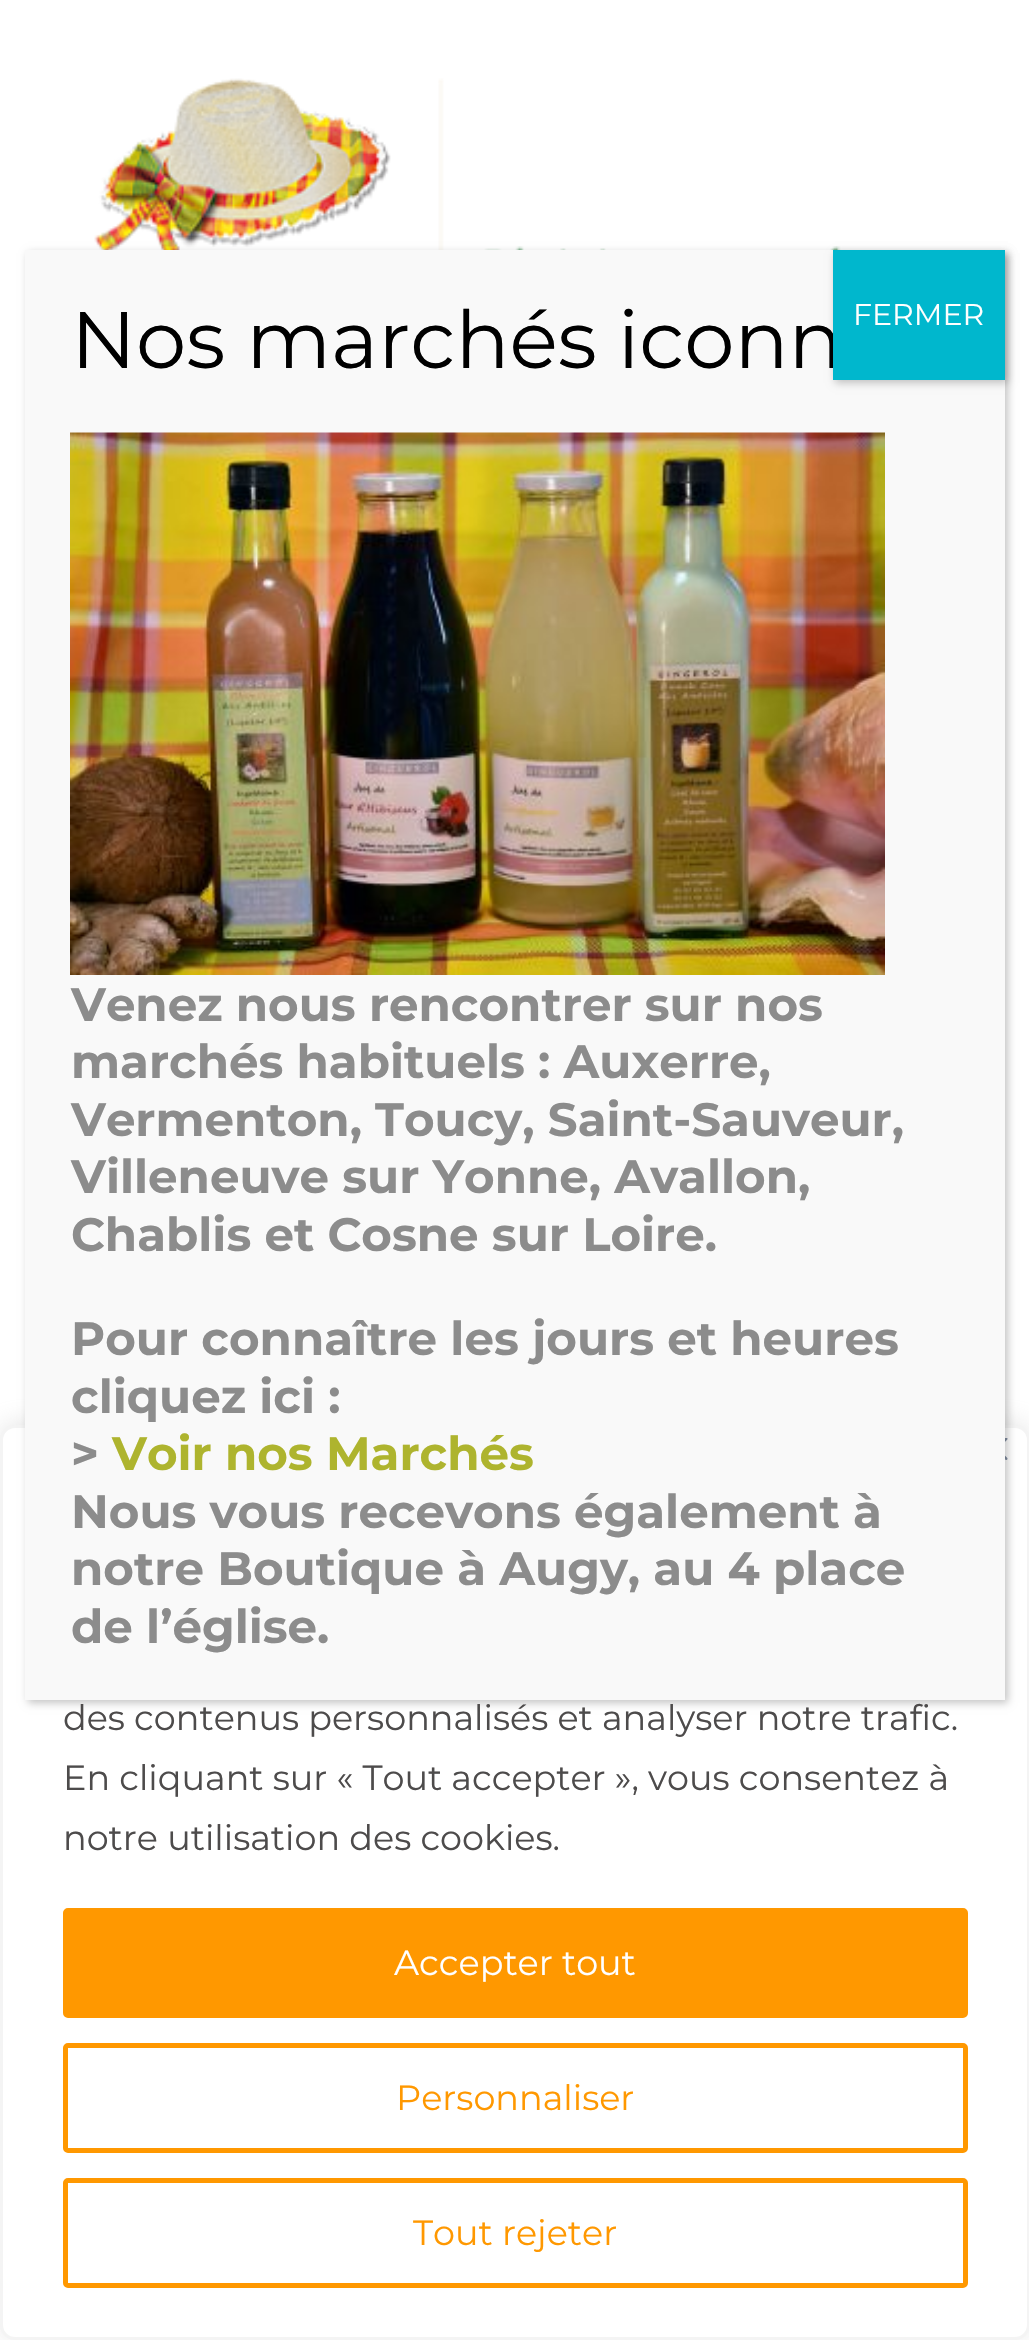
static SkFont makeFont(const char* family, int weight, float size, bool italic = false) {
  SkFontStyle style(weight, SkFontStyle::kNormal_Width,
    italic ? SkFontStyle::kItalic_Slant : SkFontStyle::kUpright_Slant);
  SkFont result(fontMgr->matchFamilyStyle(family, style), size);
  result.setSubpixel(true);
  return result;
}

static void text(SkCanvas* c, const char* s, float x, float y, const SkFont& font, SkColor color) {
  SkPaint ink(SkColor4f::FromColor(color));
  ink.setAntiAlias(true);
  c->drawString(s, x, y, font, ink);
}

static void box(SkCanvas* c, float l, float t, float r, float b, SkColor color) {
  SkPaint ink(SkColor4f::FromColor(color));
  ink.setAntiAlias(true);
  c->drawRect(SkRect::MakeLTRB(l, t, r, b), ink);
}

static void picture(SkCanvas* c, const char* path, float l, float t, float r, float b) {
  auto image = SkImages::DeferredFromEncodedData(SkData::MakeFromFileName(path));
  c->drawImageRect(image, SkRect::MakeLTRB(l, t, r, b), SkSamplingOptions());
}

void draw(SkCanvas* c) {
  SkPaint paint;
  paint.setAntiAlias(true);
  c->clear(0xffffffff);
  picture(c, "img_01.png", 94, 78, 845, 250);
  paint.setColor(0x4dacabab);
  paint.setMaskFilter(SkMaskFilter::MakeBlur(kNormal_SkBlurStyle, 12.5f));
  c->drawRoundRect(SkRect::MakeLTRB(0, 1423, 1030, 2338), 15, 15, paint);
  paint.setMaskFilter(nullptr);
  paint.setColor(0xffffffff);
  c->drawRoundRect(SkRect::MakeLTRB(1.5f, 1426.5f, 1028.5f, 2338.5f), 13.5f, 13.5f, paint);
  paint.setStyle(SkPaint::kStroke_Style);
  paint.setStrokeWidth(3);
  paint.setColor(0xfff4f4f4);
  c->drawRoundRect(SkRect::MakeLTRB(1.5f, 1426.5f, 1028.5f, 2338.5f), 13.5f, 13.5f, paint);
  picture(c, "img_03.png", 1005, 1438, 1008, 1460);
  paint.setStyle(SkPaint::kFill_Style);
  paint.setColor(0x3b020202);
  paint.setMaskFilter(SkMaskFilter::MakeBlur(kNormal_SkBlurStyle, 4));
  c->drawRect(SkRect::MakeLTRB(28, 253, 1008, 1703), paint);
  paint.setMaskFilter(nullptr);
  box(c, 25, 250, 1005, 1700, 0xfff9f9f9);
  SkFont face1 = makeFont("Montserrat", 400, 80);
  text(c, "Nos marchés iconn", 71, 368, face1, 0xff000000);
  paint.setMaskFilter(SkMaskFilter::MakeBlur(kNormal_SkBlurStyle, 4));
  c->drawRect(SkRect::MakeLTRB(835, 253, 1008, 383), paint);
  paint.setMaskFilter(nullptr);
  box(c, 833, 250, 1005, 380, 0xff00b7cd);
  SkFont face2 = makeFont("Montserrat", 400, 30);
  text(c, "FERMER", 853, 325, face2, 0xffffffff);
  picture(c, "img_02.png", 70, 432, 885, 975);
  SkFont face3 = makeFont("Montserrat", 700, 46.75f);
  text(c, "Venez nous rencontrer sur nos", 71, 1021, face3, 0xff8c8c8c);
  text(c, "marchés habituels : Auxerre,", 71, 1078, face3, 0xff8c8c8c);
  text(c, "Vermenton, Toucy, Saint-Sauveur,", 71, 1136, face3, 0xff8c8c8c);
  text(c, "Villeneuve sur Yonne, Avallon,", 71, 1193, face3, 0xff8c8c8c);
  text(c, "Chablis et Cosne sur Loire.", 71, 1251, face3, 0xff8c8c8c);
  text(c, "Pour connaître les jours et heures", 71, 1355, face3, 0xff8c8c8c);
  text(c, "cliquez ici :", 71, 1413, face3, 0xff8c8c8c);
  text(c, ">", 71, 1470, face3, 0xff8c8c8c);
  text(c, "Voir nos Marchés", 112, 1470, face3, 0xffaeb42e);
  text(c, "Nous vous recevons également à", 71, 1528, face3, 0xff8c8c8c);
  text(c, "notre Boutique à Augy, au 4 place", 71, 1585, face3, 0xff8c8c8c);
  text(c, "de l’église.", 71, 1643, face3, 0xff8c8c8c);
  SkFont face4 = makeFont("Montserrat", 400, 35);
  text(c, "des contenus personnalisés et analyser notre trafic.", 63, 1730, face4, 0xff4d4b4b);
  text(c, "En cliquant sur « Tout accepter », vous consentez à", 63, 1790, face4, 0xff4d4b4b);
  text(c, "notre utilisation des cookies.", 63, 1850, face4, 0xff4d4b4b);
  paint.setColor(0xffff9800);
  c->drawRoundRect(SkRect::MakeLTRB(65.5f, 1910.5f, 965.5f, 2015.5f), 2.5f, 2.5f, paint);
  paint.setStyle(SkPaint::kStroke_Style);
  paint.setStrokeWidth(5);
  c->drawRoundRect(SkRect::MakeLTRB(65.5f, 1910.5f, 965.5f, 2015.5f), 2.5f, 2.5f, paint);
  text(c, "Accepter tout", 394, 1975, face4, 0xffffffff);
  c->drawRoundRect(SkRect::MakeLTRB(65.5f, 2045.5f, 965.5f, 2150.5f), 2.5f, 2.5f, paint);
  text(c, "Personnaliser", 396, 2110, face4, 0xffff9800);
  c->drawRoundRect(SkRect::MakeLTRB(65.5f, 2180.5f, 965.5f, 2285.5f), 2.5f, 2.5f, paint);
  text(c, "Tout rejeter", 413, 2245, face4, 0xffff9800);
}
